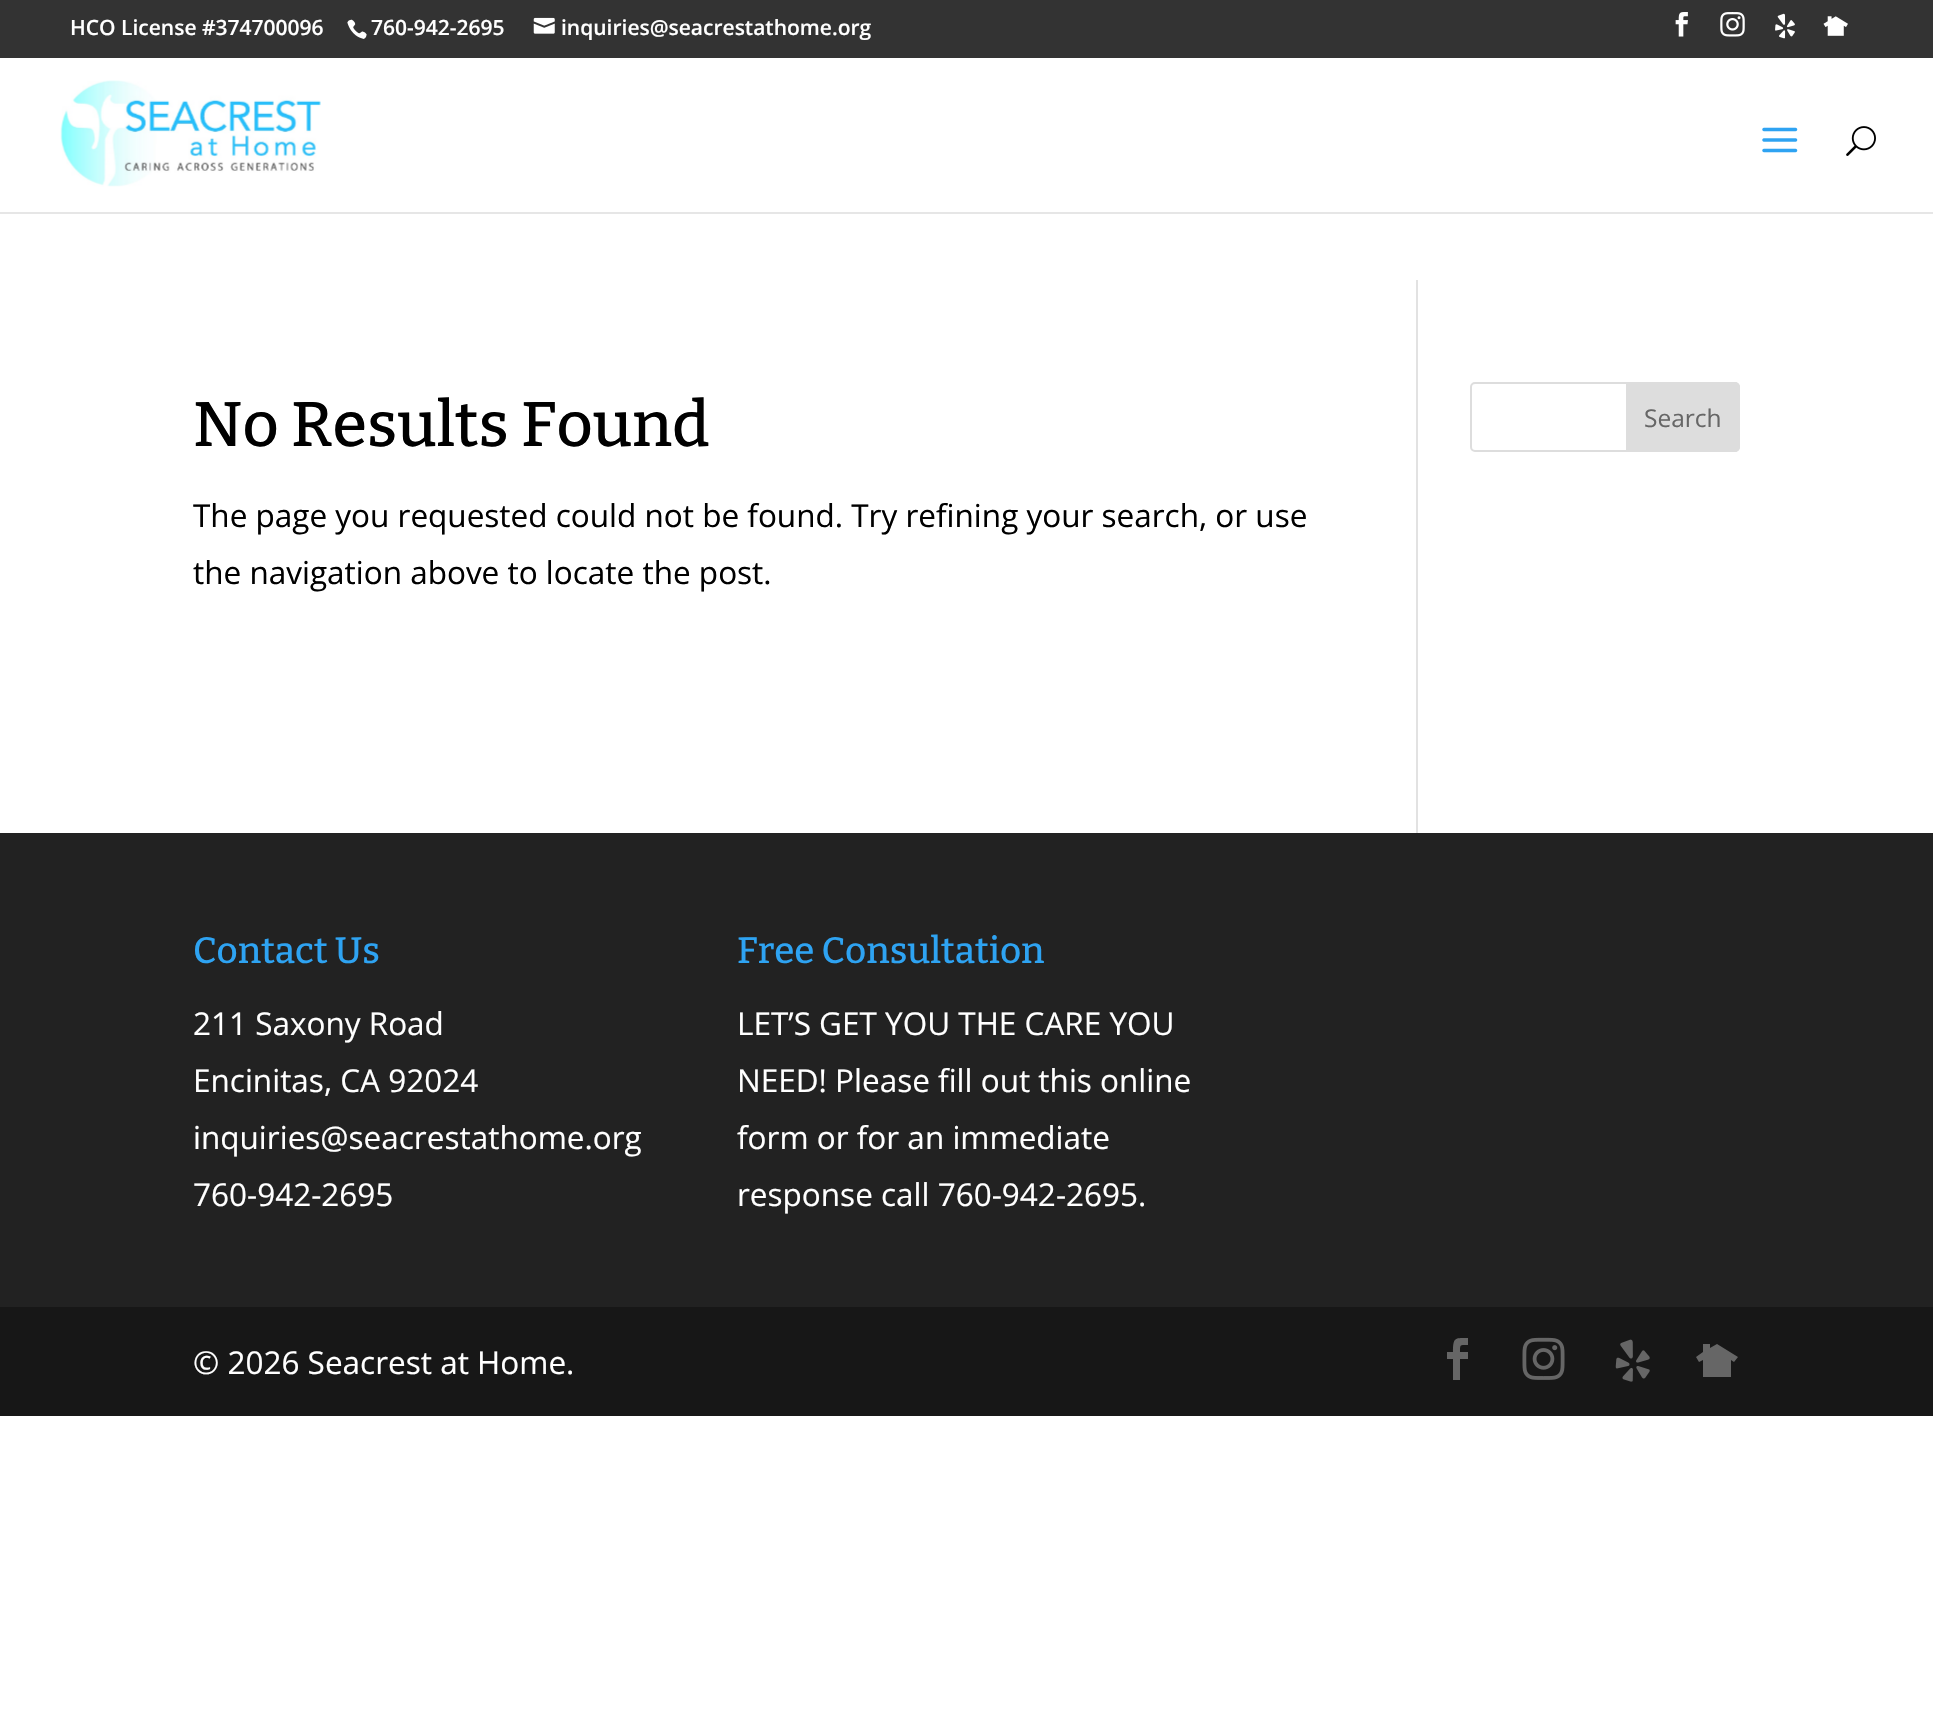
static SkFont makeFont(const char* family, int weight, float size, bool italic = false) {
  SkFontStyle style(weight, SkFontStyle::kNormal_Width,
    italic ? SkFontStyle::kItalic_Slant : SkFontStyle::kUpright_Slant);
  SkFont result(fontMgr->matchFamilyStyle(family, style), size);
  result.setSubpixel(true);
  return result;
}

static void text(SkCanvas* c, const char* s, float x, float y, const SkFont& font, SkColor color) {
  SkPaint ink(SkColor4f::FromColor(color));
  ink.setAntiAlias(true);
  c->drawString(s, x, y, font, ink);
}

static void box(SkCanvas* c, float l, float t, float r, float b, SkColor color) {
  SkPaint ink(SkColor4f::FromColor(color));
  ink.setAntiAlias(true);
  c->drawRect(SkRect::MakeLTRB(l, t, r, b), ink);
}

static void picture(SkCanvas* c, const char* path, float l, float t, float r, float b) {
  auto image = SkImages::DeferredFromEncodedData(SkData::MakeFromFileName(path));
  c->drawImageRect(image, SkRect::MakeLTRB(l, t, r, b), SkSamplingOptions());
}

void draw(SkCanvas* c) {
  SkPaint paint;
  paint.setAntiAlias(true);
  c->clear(0xffffffff);
  box(c, 0, 0, 1933, 58, 0xff333333);
  SkFont face1 = makeFont("Open Sans", 600, 21);
  text(c, "HCO License #374700096", 70, 35, face1, 0xffffffff);
  picture(c, "img_01.png", 347, 19, 367, 39);
  text(c, "760-942-2695", 371, 35, face1, 0xffffffff);
  picture(c, "img_02.png", 533, 17, 555, 34);
  text(c, "inquiries@seacrestathome.org", 561, 35, face1, 0xffffffff);
  picture(c, "img_03.png", 1675, 12, 1688, 37);
  picture(c, "img_04.png", 1720, 12, 1745, 37);
  picture(c, "img_05.png", 1775, 13, 1795, 39);
  picture(c, "img_06.png", 1823, 16, 1848, 36);
  paint.setColor(0xffe6e6e6);
  c->drawPath(SkPathBuilder().moveTo(0, 212).lineTo(0, 214).lineTo(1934, 214).lineTo(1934, 60).lineTo(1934, 212).close().detach(), paint);
  picture(c, "img_07.png", 60, 80, 321, 187);
  picture(c, "img_08.png", 1762, 127, 1798, 153);
  picture(c, "img_09.png", 1846, 126, 1876, 156);
  box(c, 1416, 280, 1418, 833, 0xffe2e2e2);
  SkFont face2 = makeFont("Bitter", 500, 63);
  text(c, "No Results Found", 193, 446, face2, 0xff000000);
  SkFont face3 = makeFont("Open Sans", 400, 31.5f);
  text(c, "The page you requested could not be found. Try refining your search, or use", 193, 527, face3, 0xff000000);
  text(c, "the navigation above to locate the post.", 193, 584, face3, 0xff000000);
  paint.setStyle(SkPaint::kStroke_Style);
  paint.setStrokeWidth(2);
  paint.setColor(0xffdddddd);
  c->drawRoundRect(SkRect::MakeLTRB(1471, 383, 1739, 451), 4, 4, paint);
  paint.setStyle(SkPaint::kFill_Style);
  c->drawPath(SkPathBuilder().moveTo(1627, 383).lineTo(1735, 383).cubicTo(1737, 383, 1739, 385, 1739, 387).lineTo(1739, 447).cubicTo(1739, 449, 1737, 451, 1735, 451).lineTo(1627, 451).close().detach(), paint);
  paint.setStyle(SkPaint::kStroke_Style);
  c->drawPath(SkPathBuilder().moveTo(1627, 383).lineTo(1735, 383).cubicTo(1737, 383, 1739, 385, 1739, 387).lineTo(1739, 447).cubicTo(1739, 449, 1737, 451, 1735, 451).lineTo(1627, 451).close().detach(), paint);
  SkFont face4 = makeFont("Open Sans", 400, 24.5f);
  text(c, "Search", 1644, 427, face4, 0xff666666);
  box(c, 0, 833, 1933, 1307, 0xff222222);
  SkFont face5 = makeFont("Bitter", 500, 36.75f);
  text(c, "Contact Us", 193, 963, face5, 0xff2ea3f2);
  text(c, "211 Saxony Road", 193, 1035, face3, 0xffffffff);
  text(c, "Encinitas, CA 92024", 193, 1092, face3, 0xffffffff);
  text(c, "inquiries@seacrestathome.org", 193, 1149, face3, 0xffffffff);
  text(c, "760-942-2695", 193, 1206, face3, 0xffffffff);
  text(c, "Free Consultation", 737, 963, face5, 0xff2ea3f2);
  text(c, "LET’S GET YOU THE CARE YOU", 737, 1035, face3, 0xffffffff);
  text(c, "NEED! Please fill out this online", 737, 1092, face3, 0xffffffff);
  text(c, "form or for an immediate", 737, 1149, face3, 0xffffffff);
  text(c, "response call 760-942-2695.", 737, 1206, face3, 0xffffffff);
  box(c, 0, 1307, 1933, 1416, 0xff171717);
  text(c, "© 2026 Seacrest at Home.", 193, 1374, face3, 0xffffffff);
  paint.setStyle(SkPaint::kFill_Style);
  paint.setColor(0xff666666);
  c->drawPath(SkPathBuilder().moveTo(1453, 1380).lineTo(1460, 1380).lineTo(1460, 1359).lineTo(1468, 1359).lineTo(1468, 1352).lineTo(1460, 1352).cubicTo(1460, 1344, 1460, 1345, 1468, 1345).lineTo(1468, 1338).cubicTo(1455, 1338, 1453, 1337, 1453, 1352).lineTo(1447, 1352).lineTo(1447, 1359).lineTo(1453, 1359).close().detach(), paint);
  picture(c, "img_10.png", 1522, 1337, 1565, 1380);
  picture(c, "img_11.png", 1615, 1339, 1650, 1382);
  c->drawPath(SkPathBuilder().moveTo(1738, 1357).lineTo(1717, 1344).lineTo(1710, 1348).lineTo(1710, 1344).lineTo(1703, 1344).lineTo(1703, 1352).lineTo(1696, 1357).lineTo(1699, 1362).lineTo(1703, 1360).lineTo(1703, 1377).lineTo(1731, 1377).lineTo(1731, 1360).lineTo(1734, 1362).close().detach(), paint);
}
